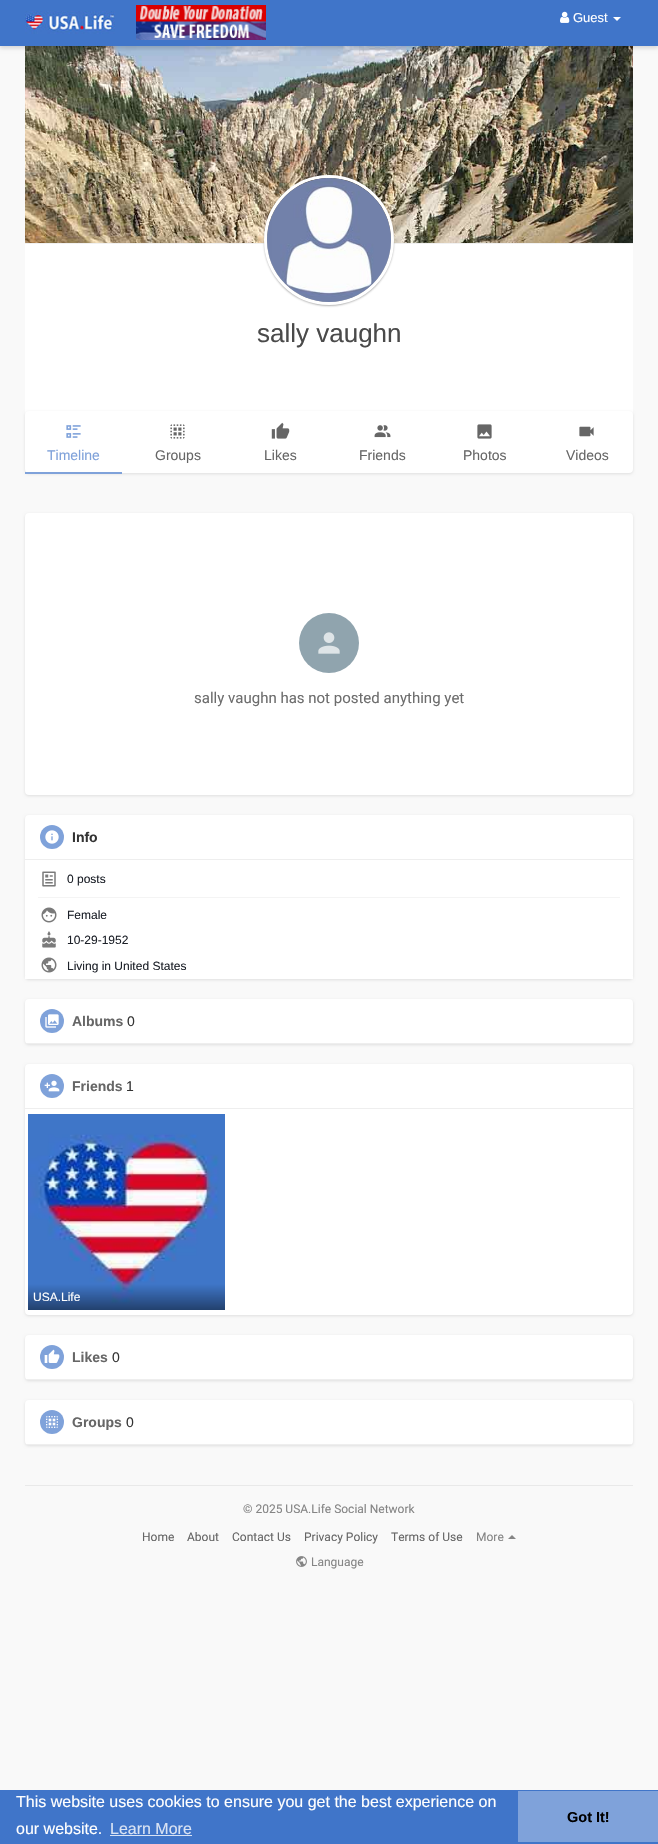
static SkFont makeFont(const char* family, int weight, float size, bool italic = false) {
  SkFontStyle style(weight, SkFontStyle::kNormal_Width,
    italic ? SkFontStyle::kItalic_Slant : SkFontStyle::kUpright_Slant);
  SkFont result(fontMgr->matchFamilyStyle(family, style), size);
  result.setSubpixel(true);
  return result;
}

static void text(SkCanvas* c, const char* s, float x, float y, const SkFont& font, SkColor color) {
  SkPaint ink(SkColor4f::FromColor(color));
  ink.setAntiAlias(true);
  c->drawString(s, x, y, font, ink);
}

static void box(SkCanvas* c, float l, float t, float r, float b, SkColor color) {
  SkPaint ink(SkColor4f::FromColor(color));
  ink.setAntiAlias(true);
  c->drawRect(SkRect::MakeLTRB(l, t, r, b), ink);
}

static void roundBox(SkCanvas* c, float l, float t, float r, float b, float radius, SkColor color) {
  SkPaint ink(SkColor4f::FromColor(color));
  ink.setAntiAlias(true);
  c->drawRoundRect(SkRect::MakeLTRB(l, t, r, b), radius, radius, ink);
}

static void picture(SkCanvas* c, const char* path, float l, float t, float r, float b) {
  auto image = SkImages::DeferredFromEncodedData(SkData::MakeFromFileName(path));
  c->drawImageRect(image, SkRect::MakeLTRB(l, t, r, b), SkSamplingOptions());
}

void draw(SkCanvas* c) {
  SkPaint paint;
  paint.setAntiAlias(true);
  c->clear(0xfff9f9f9);
  picture(c, "img_04.png", 25, 46, 633, 243);
  paint.setColor(0x26000000);
  paint.setMaskFilter(SkMaskFilter::MakeBlur(kNormal_SkBlurStyle, 2));
  c->drawRect(SkRect::MakeLTRB(0, 2, 658, 48), paint);
  paint.setMaskFilter(nullptr);
  box(c, 0, 0, 658, 46, 0xff4075c9);
  picture(c, "img_01.png", 25, 11, 115, 34);
  picture(c, "img_02.png", 136, 5, 266, 40);
  picture(c, "img_03.png", 560, 11, 570, 23);
  SkFont face1 = makeFont("Liberation Sans", 400, 13);
  text(c, "Guest", 573, 22, face1, 0xffffffff);
  paint.setColor(0xffffffff);
  c->drawPath(SkPathBuilder().moveTo(613, 17).lineTo(621, 17).lineTo(617, 21).close().detach(), paint);
  box(c, 25, 243, 633, 244, 0xfff1f1f1);
  box(c, 25, 244, 633, 415, 0xffffffff);
  paint.setColor(0x6b444444);
  paint.setMaskFilter(SkMaskFilter::MakeBlur(kNormal_SkBlurStyle, 1));
  c->drawRoundRect(SkRect::MakeLTRB(264, 176, 394, 306), 65, 65, paint);
  paint.setMaskFilter(nullptr);
  paint.setStyle(SkPaint::kStroke_Style);
  paint.setStrokeWidth(3);
  paint.setColor(0xffffffff);
  c->drawCircle(329, 240, 63.5f, paint);
  picture(c, "img_05.png", 267, 178, 391, 302);
  SkFont face2 = makeFont("Liberation Sans", 400, 26);
  text(c, "sally vaughn", 257, 342, face2, 0xff4a4a4a);
  paint.setStyle(SkPaint::kFill_Style);
  paint.setColor(0x1a000000);
  paint.setMaskFilter(SkMaskFilter::MakeBlur(kNormal_SkBlurStyle, 1.5f));
  c->drawRoundRect(SkRect::MakeLTRB(25, 412, 633, 474), 4, 4, paint);
  paint.setMaskFilter(nullptr);
  roundBox(c, 25, 411, 633, 473, 4, 0xffffffff);
  box(c, 25, 472, 122, 474, 0xff7fa2da);
  picture(c, "img_06.png", 66, 425, 81, 438);
  SkFont face3 = makeFont("Liberation Sans", 400, 14);
  text(c, "Timeline", 47, 460, face3, 0xff7fa2da);
  picture(c, "img_07.png", 170, 424, 185, 439);
  text(c, "Groups", 155, 460, face3, 0xff666666);
  picture(c, "img_08.png", 271, 422, 290, 439);
  text(c, "Likes", 264, 460, face3, 0xff666666);
  picture(c, "img_09.png", 374, 425, 391, 438);
  text(c, "Friends", 359, 460, face3, 0xff666666);
  picture(c, "img_10.png", 477, 424, 492, 439);
  text(c, "Photos", 463, 460, face3, 0xff666666);
  picture(c, "img_11.png", 579, 426, 594, 437);
  text(c, "Videos", 566, 460, face3, 0xff666666);
  paint.setMaskFilter(SkMaskFilter::MakeBlur(kNormal_SkBlurStyle, 1.5f));
  c->drawRoundRect(SkRect::MakeLTRB(25, 514, 633, 796), 4, 4, paint);
  paint.setMaskFilter(nullptr);
  roundBox(c, 25, 513, 633, 795, 4, 0xffffffff);
  paint.setColor(0xff90a4ae);
  c->drawCircle(329, 643, 30, paint);
  picture(c, "img_12.png", 318, 632, 340, 654);
  SkFont face4 = makeFont("Roboto", 400, 15);
  text(c, "sally vaughn has not posted anything yet", 194, 703, face4, 0xff6d6d6d);
  paint.setColor(0x1a000000);
  paint.setMaskFilter(SkMaskFilter::MakeBlur(kNormal_SkBlurStyle, 1.5f));
  c->drawRoundRect(SkRect::MakeLTRB(25, 816, 633, 980), 4, 4, paint);
  paint.setMaskFilter(nullptr);
  roundBox(c, 25, 815, 633, 979, 4, 0xffffffff);
  box(c, 25, 859, 633, 860, 0xffeeeeee);
  paint.setColor(0xff7fa2da);
  c->drawCircle(52, 837, 12, paint);
  picture(c, "img_13.png", 45, 830, 59, 844);
  SkFont face5 = makeFont("Liberation Sans", 700, 14);
  text(c, "Info", 72, 842, face5, 0xff333333);
  picture(c, "img_14.png", 42, 871, 56, 887);
  SkFont face6 = makeFont("Liberation Sans", 400, 12);
  text(c, "0 posts", 67, 883, face6, 0xff1d2129);
  box(c, 38, 897, 620, 898, 0xfff4f4f4);
  picture(c, "img_15.png", 41, 907, 57, 923);
  text(c, "Female", 67, 919, face6, 0xff1d2129);
  picture(c, "img_16.png", 42, 931, 56, 948);
  text(c, "10-29-1952", 67, 944, face6, 0xff1d2129);
  box(c, 25, 976, 633, 979, 0xffffffff);
  picture(c, "img_17.png", 41, 957, 57, 973);
  text(c, "Living in United States", 67, 970, face6, 0xff1d2129);
  paint.setColor(0x1a000000);
  paint.setMaskFilter(SkMaskFilter::MakeBlur(kNormal_SkBlurStyle, 1.5f));
  c->drawRoundRect(SkRect::MakeLTRB(25, 1000, 633, 1045), 4, 4, paint);
  paint.setMaskFilter(nullptr);
  roundBox(c, 25, 999, 633, 1044, 4, 0xffffffff);
  box(c, 25, 1043, 633, 1044, 0xffeeeeee);
  paint.setColor(0xff7fa2da);
  c->drawCircle(52, 1021, 12, paint);
  picture(c, "img_18.png", 45, 1014, 59, 1028);
  text(c, "Albums", 72, 1026, face5, 0xff666666);
  text(c, "0", 127, 1026, face3, 0xff333333);
  paint.setColor(0x1a000000);
  paint.setMaskFilter(SkMaskFilter::MakeBlur(kNormal_SkBlurStyle, 1.5f));
  c->drawRoundRect(SkRect::MakeLTRB(25, 1065, 633, 1316), 4, 4, paint);
  paint.setMaskFilter(nullptr);
  roundBox(c, 25, 1064, 633, 1315, 4, 0xffffffff);
  box(c, 25, 1108, 633, 1109, 0xffeeeeee);
  paint.setColor(0xff7fa2da);
  c->drawCircle(52, 1086, 12, paint);
  picture(c, "img_19.png", 44, 1080, 60, 1092);
  text(c, "Friends", 72, 1091, face5, 0xff666666);
  text(c, "1", 126, 1091, face3, 0xff333333);
  picture(c, "img_20.png", 28, 1114, 225, 1310);
  text(c, "USA.Life", 33, 1301, face6, 0xffffffff);
  paint.setColor(0x1a000000);
  paint.setMaskFilter(SkMaskFilter::MakeBlur(kNormal_SkBlurStyle, 1.5f));
  c->drawRoundRect(SkRect::MakeLTRB(25, 1336, 633, 1381), 4, 4, paint);
  paint.setMaskFilter(nullptr);
  roundBox(c, 25, 1335, 633, 1380, 4, 0xffffffff);
  box(c, 25, 1379, 633, 1380, 0xffeeeeee);
  paint.setColor(0xff7fa2da);
  c->drawCircle(52, 1357, 12, paint);
  picture(c, "img_21.png", 44, 1349, 60, 1363);
  text(c, "Likes", 72, 1362, face5, 0xff666666);
  text(c, "0", 112, 1362, face3, 0xff333333);
  paint.setColor(0x1a000000);
  paint.setMaskFilter(SkMaskFilter::MakeBlur(kNormal_SkBlurStyle, 1.5f));
  c->drawRoundRect(SkRect::MakeLTRB(25, 1401, 633, 1446), 4, 4, paint);
  paint.setMaskFilter(nullptr);
  roundBox(c, 25, 1400, 633, 1445, 4, 0xffffffff);
  box(c, 25, 1444, 633, 1445, 0xffeeeeee);
  paint.setColor(0xff7fa2da);
  c->drawCircle(52, 1422, 12, paint);
  picture(c, "img_22.png", 46, 1416, 58, 1428);
  text(c, "Groups", 72, 1427, face5, 0xff666666);
  text(c, "0", 126, 1427, face3, 0xff333333);
  box(c, 25, 1485, 633, 1486, 0xffe9e9e9);
  SkFont face7 = makeFont("Roboto", 400, 12);
  text(c, "© 2025 USA.Life Social Network", 243, 1513, face7, 0xff858585);
  text(c, "Home", 142, 1541, face7, 0xff666666);
  text(c, "About", 187, 1541, face7, 0xff666666);
  text(c, "Contact Us", 232, 1541, face7, 0xff666666);
  text(c, "Privacy Policy", 304, 1541, face7, 0xff666666);
  text(c, "Terms of Use", 391, 1541, face7, 0xff666666);
  text(c, "More", 476, 1541, face7, 0xff858585);
  paint.setColor(0xff858585);
  c->drawPath(SkPathBuilder().moveTo(516, 1539).lineTo(508, 1539).lineTo(512, 1535).close().detach(), paint);
  picture(c, "img_23.png", 296, 1556, 307, 1567);
  text(c, "Language", 311, 1566, face7, 0xff858585);
  box(c, 0, 1790, 658, 1844, 0xff4075c9);
  SkFont face8 = makeFont("Liberation Sans", 400, 16);
  text(c, "This website uses cookies to ensure you get the best experience on", 16, 1807, face8, 0xffffffff);
  text(c, "our website.", 16, 1834, face8, 0xffffffff);
  text(c, "Learn More", 110, 1834, face8, 0xffd9e3f4);
  box(c, 110, 1835, 192, 1836, 0xffd9e3f4);
  box(c, 518, 1791, 658, 1842, 0xff7fa2da);
  SkFont face9 = makeFont("Liberation Sans", 700, 14.5f);
  text(c, "Got It!", 567, 1822, face9, 0xff000000);
}
